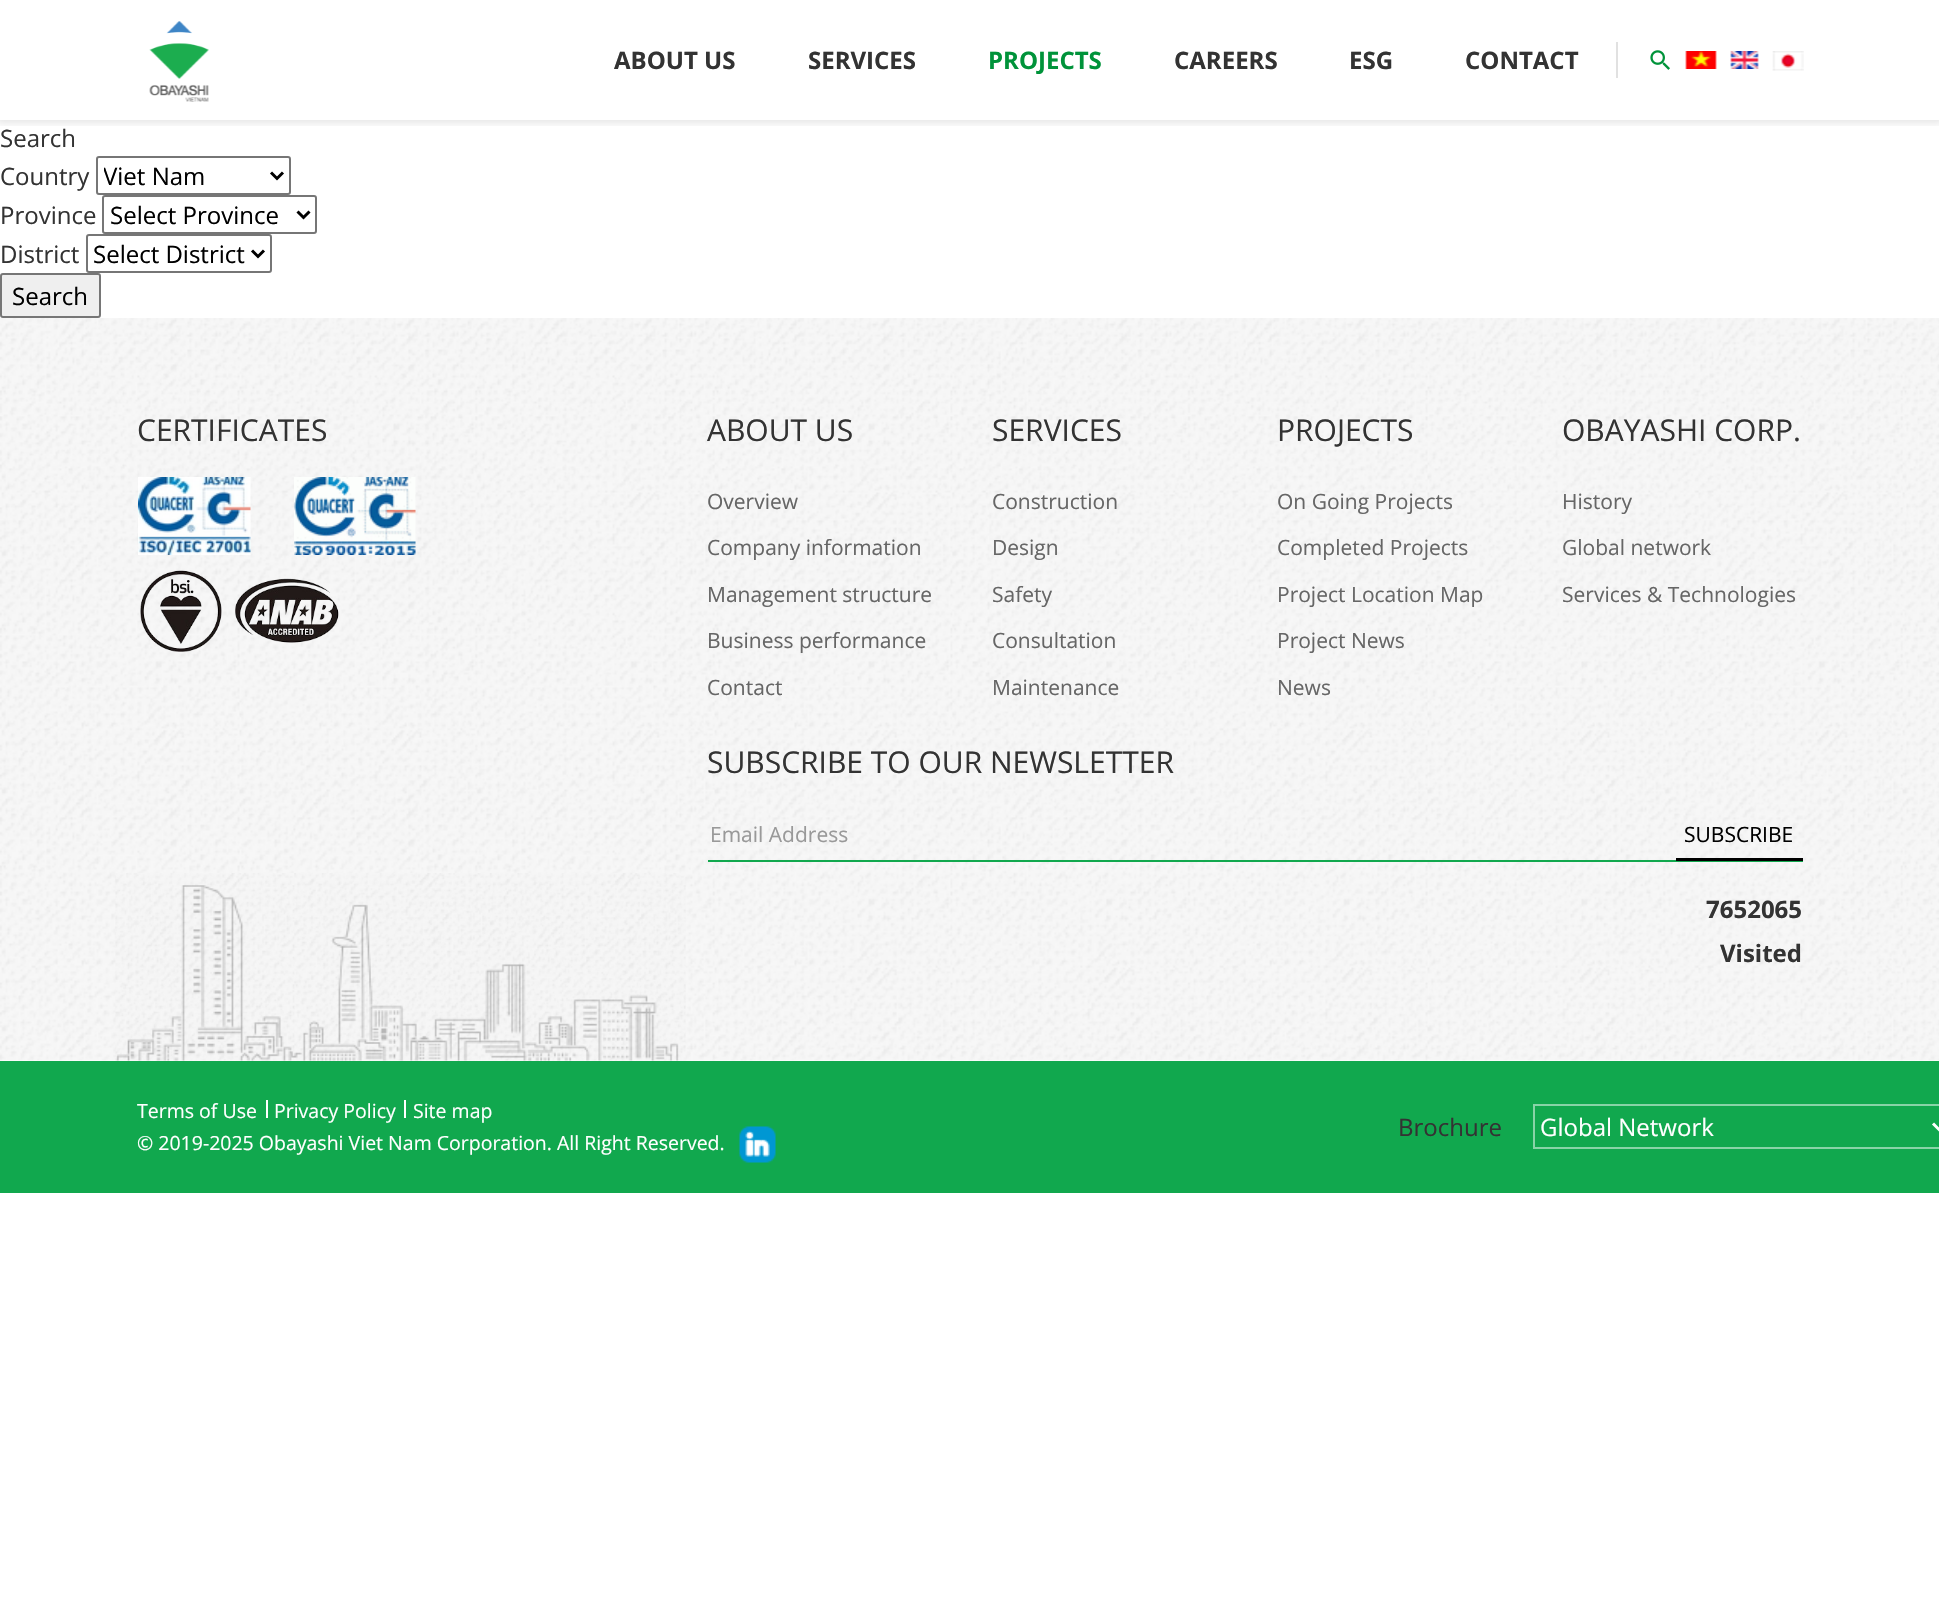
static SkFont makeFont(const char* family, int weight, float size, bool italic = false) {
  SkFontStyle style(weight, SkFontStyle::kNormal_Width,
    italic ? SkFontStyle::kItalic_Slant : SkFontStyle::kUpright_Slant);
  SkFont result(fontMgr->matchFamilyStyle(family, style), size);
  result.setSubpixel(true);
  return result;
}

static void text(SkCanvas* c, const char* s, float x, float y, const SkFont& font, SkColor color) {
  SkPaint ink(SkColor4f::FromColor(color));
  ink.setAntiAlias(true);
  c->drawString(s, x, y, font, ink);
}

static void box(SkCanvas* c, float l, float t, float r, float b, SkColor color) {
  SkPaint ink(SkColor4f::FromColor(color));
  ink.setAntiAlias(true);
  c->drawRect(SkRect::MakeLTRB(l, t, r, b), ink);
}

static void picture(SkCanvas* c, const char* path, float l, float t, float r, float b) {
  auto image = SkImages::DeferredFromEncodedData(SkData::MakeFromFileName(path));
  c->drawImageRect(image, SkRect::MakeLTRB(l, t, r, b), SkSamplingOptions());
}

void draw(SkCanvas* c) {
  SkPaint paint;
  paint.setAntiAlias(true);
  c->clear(0xffffffff);
  c->save();
  c->clipRect(SkRect::MakeLTRB(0, 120, 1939, 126));
  paint.setColor(0x1a000000);
  paint.setMaskFilter(SkMaskFilter::MakeBlur(kNormal_SkBlurStyle, 4));
  c->drawRect(SkRect::MakeLTRB(-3, -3, 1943, 123), paint);
  paint.setMaskFilter(nullptr);
  c->restore();
  picture(c, "img_01.png", 149, 21, 209, 102);
  box(c, 1616, 42, 1618, 78, 0xffe1e1e1);
  SkFont face1 = makeFont("Open Sans", 700, 24);
  text(c, "ABOUT US", 614, 69, face1, 0xff333333);
  text(c, "SERVICES", 808, 69, face1, 0xff333333);
  text(c, "PROJECTS", 988, 69, face1, 0xff00933a);
  text(c, "CAREERS", 1174, 69, face1, 0xff333333);
  text(c, "ESG", 1349, 69, face1, 0xff333333);
  text(c, "CONTACT", 1465, 69, face1, 0xff333333);
  picture(c, "img_02.png", 1650, 50, 1670, 70);
  picture(c, "img_03.png", 1685, 51, 1717, 69);
  picture(c, "img_04.png", 1730, 51, 1759, 69);
  picture(c, "img_05.png", 1772, 51, 1804, 71);
  SkFont face2 = makeFont("Open Sans", 400, 24);
  text(c, "Search", 0, 147, face2, 0xff333333);
  text(c, "Country", 0, 185, face2, 0xff333333);
  paint.setStyle(SkPaint::kStroke_Style);
  paint.setStrokeWidth(2);
  paint.setColor(0xff767676);
  c->drawRoundRect(SkRect::MakeLTRB(97, 157, 290, 194), 2, 2, paint);
  paint.setStrokeWidth(3);
  paint.setColor(0xff000000);
  c->drawPath(SkPathBuilder().moveTo(271, 172.5f).lineTo(277, 178.5f).lineTo(283, 172.5f).detach(), paint);
  c->save();
  c->clipRect(SkRect::MakeLTRB(104, 158, 266, 194));
  text(c, "Viet Nam", 103, 185, face2, 0xff000000);
  c->restore();
  text(c, "Province", 0, 224, face2, 0xff333333);
  paint.setStrokeWidth(2);
  paint.setColor(0xff767676);
  c->drawRoundRect(SkRect::MakeLTRB(103, 196, 316, 233), 2, 2, paint);
  paint.setStrokeWidth(3);
  paint.setColor(0xff000000);
  c->drawPath(SkPathBuilder().moveTo(297.5f, 211.5f).lineTo(303.5f, 217.5f).lineTo(309.5f, 211.5f).detach(), paint);
  text(c, "Select Province", 110, 224, face2, 0xff000000);
  text(c, "District", 0, 263, face2, 0xff333333);
  paint.setStrokeWidth(2);
  paint.setColor(0xff767676);
  c->drawRoundRect(SkRect::MakeLTRB(87, 235, 271, 272), 2, 2, paint);
  paint.setStrokeWidth(3);
  paint.setColor(0xff000000);
  c->drawPath(SkPathBuilder().moveTo(252, 250.5f).lineTo(258, 256.5f).lineTo(264, 250.5f).detach(), paint);
  text(c, "Select District", 93, 263, face2, 0xff000000);
  paint.setStyle(SkPaint::kFill_Style);
  paint.setColor(0xffefefef);
  c->drawRoundRect(SkRect::MakeLTRB(1, 274, 100, 317), 2, 2, paint);
  paint.setStyle(SkPaint::kStroke_Style);
  paint.setStrokeWidth(2);
  paint.setColor(0xff767676);
  c->drawRoundRect(SkRect::MakeLTRB(1, 274, 100, 317), 2, 2, paint);
  text(c, "Search", 12, 305, face2, 0xff000000);
  picture(c, "img_06.png", 0, 318, 1939, 1061);
  picture(c, "img_07.png", 115, 873, 686, 1061);
  SkFont face3 = makeFont("Open Sans", 400, 30);
  text(c, "CERTIFICATES", 137, 441, face3, 0xff333333);
  picture(c, "img_08.png", 138, 477, 251, 555);
  picture(c, "img_09.png", 294, 477, 416, 555);
  picture(c, "img_10.png", 140, 570, 339, 652);
  text(c, "ABOUT US", 707, 441, face3, 0xff333333);
  SkFont face4 = makeFont("Open Sans", 400, 21);
  text(c, "Overview", 707, 509, face4, 0xff666666);
  text(c, "Company information", 707, 555, face4, 0xff666666);
  text(c, "Management structure", 707, 602, face4, 0xff666666);
  text(c, "Business performance", 707, 648, face4, 0xff666666);
  text(c, "Contact", 707, 695, face4, 0xff666666);
  text(c, "SERVICES", 992, 441, face3, 0xff333333);
  text(c, "Construction", 992, 509, face4, 0xff666666);
  text(c, "Design", 992, 555, face4, 0xff666666);
  text(c, "Safety", 992, 602, face4, 0xff666666);
  text(c, "Consultation", 992, 648, face4, 0xff666666);
  text(c, "Maintenance", 992, 695, face4, 0xff666666);
  text(c, "PROJECTS", 1277, 441, face3, 0xff333333);
  text(c, "On Going Projects", 1277, 509, face4, 0xff666666);
  text(c, "Completed Projects", 1277, 555, face4, 0xff666666);
  text(c, "Project Location Map", 1277, 602, face4, 0xff666666);
  text(c, "Project News", 1277, 648, face4, 0xff666666);
  text(c, "News", 1277, 695, face4, 0xff666666);
  text(c, "OBAYASHI CORP.", 1562, 441, face3, 0xff333333);
  text(c, "History", 1562, 509, face4, 0xff666666);
  text(c, "Global network", 1562, 555, face4, 0xff666666);
  text(c, "Services & Technologies", 1562, 602, face4, 0xff666666);
  text(c, "SUBSCRIBE TO OUR NEWSLETTER", 707, 773, face3, 0xff333333);
  box(c, 708, 860, 1803, 862, 0xff11a84e);
  text(c, "Email Address", 710, 842, face4, 0xff999999);
  box(c, 1676, 858, 1803, 861, 0xff000000);
  text(c, "SUBSCRIBE", 1684, 842, face4, 0xff000000);
  text(c, "7652065", 1706, 918, face1, 0xff333333);
  text(c, "Visited", 1720, 962, face1, 0xff333333);
  box(c, 0, 1061, 1939, 1193, 0xff11a84e);
  SkFont face5 = makeFont("Open Sans", 400, 19.5f);
  text(c, "Terms of Use", 137, 1118, face5, 0xffffffff);
  box(c, 266, 1100, 268, 1118, 0xffffffff);
  text(c, "Privacy Policy", 274, 1118, face5, 0xffffffff);
  box(c, 404, 1100, 406, 1118, 0xffffffff);
  text(c, "Site map", 413, 1118, face5, 0xffffffff);
  text(c, "© 2019-2025 Obayashi Viet Nam Corporation. All Right Reserved.", 137, 1150, face5, 0xffffffff);
  picture(c, "img_11.png", 739, 1126, 776, 1163);
  text(c, "Brochure", 1398, 1136, face2, 0xff333333);
  paint.setColor(0xff88d4a7);
  c->drawRect(SkRect::MakeLTRB(1534, 1105, 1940, 1148), paint);
  paint.setStrokeWidth(3);
  paint.setColor(0xffffffff);
  c->drawPath(SkPathBuilder().moveTo(1933, 1123.5f).lineTo(1939, 1129.5f).lineTo(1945, 1123.5f).detach(), paint);
  text(c, "Global Network", 1540, 1136, face2, 0xffffffff);
}
